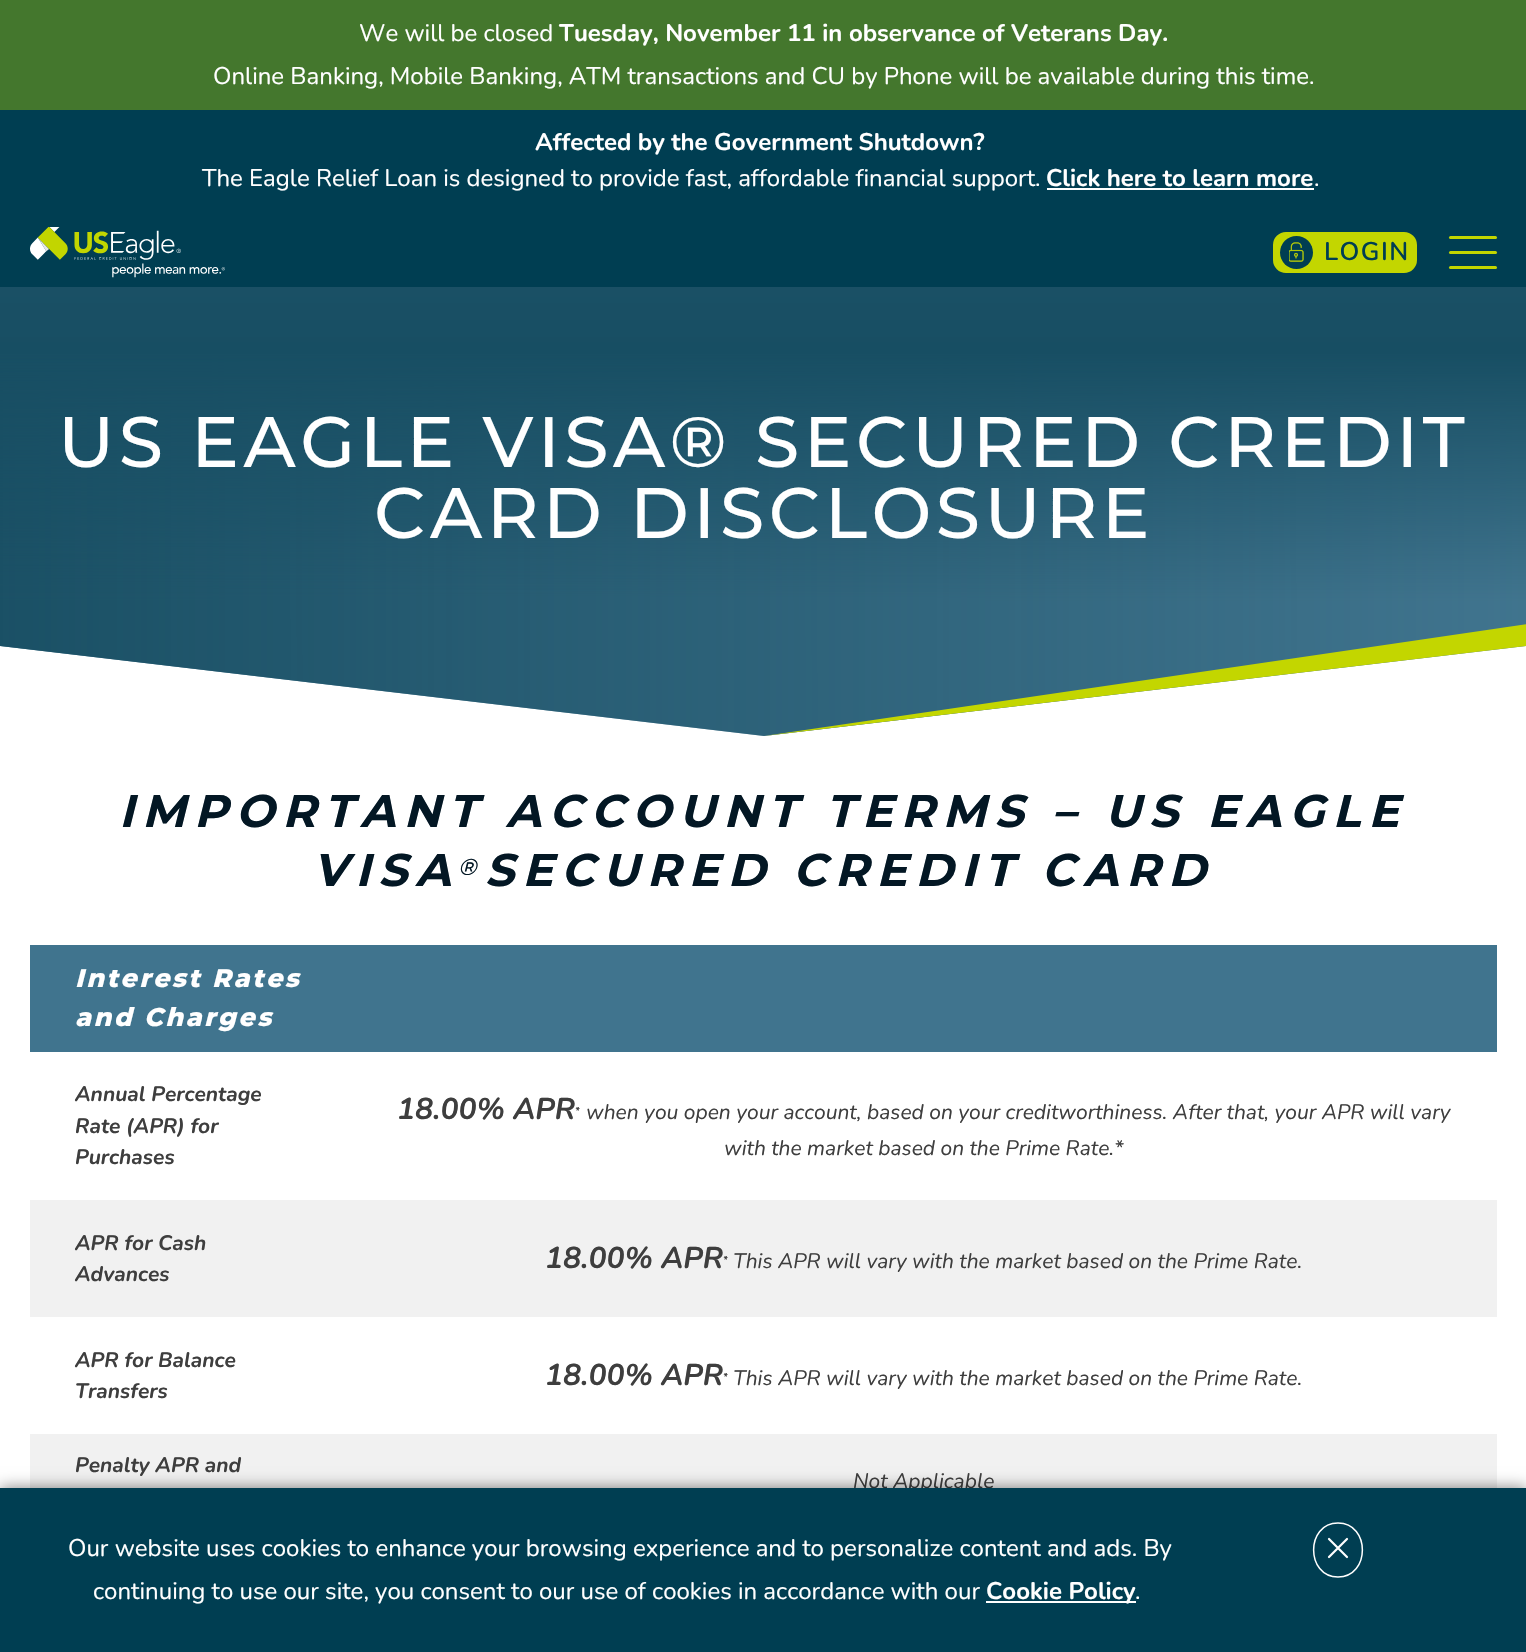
static SkFont makeFont(const char* family, int weight, float size, bool italic = false) {
  SkFontStyle style(weight, SkFontStyle::kNormal_Width,
    italic ? SkFontStyle::kItalic_Slant : SkFontStyle::kUpright_Slant);
  SkFont result(fontMgr->matchFamilyStyle(family, style), size);
  result.setSubpixel(true);
  return result;
}

static void text(SkCanvas* c, const char* s, float x, float y, const SkFont& font, SkColor color) {
  SkPaint ink(SkColor4f::FromColor(color));
  ink.setAntiAlias(true);
  c->drawString(s, x, y, font, ink);
}

static void spacedText(SkCanvas* c, const char* s, float x, float y, const SkFont& font, const SkPaint& ink, float letter, float word) {
  std::vector<SkGlyphID> glyphs(font.countText(s, strlen(s), SkTextEncoding::kUTF8));
  std::vector<float> xs(glyphs.size());
  font.textToGlyphs(s, strlen(s), SkTextEncoding::kUTF8, glyphs);
  font.getXPos(glyphs, xs, x);
  float extra = 0;
  for (size_t i = 0; i < glyphs.size(); i++) {
    xs[i] += extra;
    extra += letter + word * (glyphs[i] == font.unicharToGlyph(' '));
  }
  c->drawTextBlob(SkTextBlob::MakeFromPosHGlyphs(glyphs, xs, y, font), 0, 0, ink);
}

static void box(SkCanvas* c, float l, float t, float r, float b, SkColor color) {
  SkPaint ink(SkColor4f::FromColor(color));
  ink.setAntiAlias(true);
  c->drawRect(SkRect::MakeLTRB(l, t, r, b), ink);
}

static void roundBox(SkCanvas* c, float l, float t, float r, float b, float radius, SkColor color) {
  SkPaint ink(SkColor4f::FromColor(color));
  ink.setAntiAlias(true);
  c->drawRoundRect(SkRect::MakeLTRB(l, t, r, b), radius, radius, ink);
}

static void picture(SkCanvas* c, const char* path, float l, float t, float r, float b) {
  auto image = SkImages::DeferredFromEncodedData(SkData::MakeFromFileName(path));
  c->drawImageRect(image, SkRect::MakeLTRB(l, t, r, b), SkSamplingOptions());
}

void draw(SkCanvas* c) {
  SkPaint paint;
  paint.setAntiAlias(true);
  c->clear(0xffffffff);
  box(c, 0, 110, 1526, 287, 0xff003e52);
  box(c, 0, 0, 1526, 110, 0xff44772d);
  SkFont face1 = makeFont("Nunito", 400, 24);
  text(c, "We will be closed", 359, 41, face1, 0xffffffff);
  SkFont face2 = makeFont("Nunito", 700, 24);
  text(c, "Tuesday, November 11 in observance of Veterans Day.", 559, 41, face2, 0xffffffff);
  text(c, "Online Banking, Mobile Banking, ATM transactions and CU by Phone will be available during this time.", 213, 84, face1, 0xffffffff);
  text(c, "Affected by the Government Shutdown?", 535, 150, face2, 0xffffffff);
  text(c, "The Eagle Relief Loan is designed to provide fast, affordable financial support.", 202, 186, face1, 0xffffffff);
  text(c, "Click here to learn more", 1046, 186, face2, 0xffffffff);
  box(c, 1047, 188, 1314, 190, 0xffffffff);
  text(c, ".", 1314, 186, face1, 0xffffffff);
  picture(c, "img_01.png", 30, 227, 225, 278);
  paint.setColor(0xffc3d600);
  c->drawRoundRect(SkRect::MakeLTRB(1272, 231, 1418, 274), 14, 14, paint);
  paint.setStyle(SkPaint::kStroke_Style);
  paint.setStrokeWidth(2);
  paint.setColor(0xff003e52);
  c->drawRoundRect(SkRect::MakeLTRB(1272, 231, 1418, 274), 14, 14, paint);
  paint.setStyle(SkPaint::kFill_Style);
  c->drawCircle(1296.5f, 252.5f, 16.5f, paint);
  picture(c, "img_02.png", 1289, 242, 1304, 262);
  SkFont face3 = makeFont("Nunito", 600, 25.5f);
  spacedText(c, "LOGIN", 1324, 260, face3, paint, 1.5f, 0);
  roundBox(c, 1449, 236, 1497, 239, 1.5f, 0xffc3d600);
  roundBox(c, 1449, 251, 1497, 254, 1.5f, 0xffc3d600);
  roundBox(c, 1449, 266, 1497, 269, 1.5f, 0xffc3d600);
  paint.setColor(0xff40748e);
  c->drawPath(SkPathBuilder().moveTo(0, 287).lineTo(0, 646).lineTo(764, 736).lineTo(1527, 646).lineTo(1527, 287).close().detach(), paint);
  {
    const SkColor colors[] = {0xff1a5065, 0x001a5065};
    const float stops[] = {0, 1};
    const SkPoint ends[] = {{0, 512}, {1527, 511}};
    paint.setShader(SkGradientShader::MakeLinear(ends, colors, stops, 2, SkTileMode::kClamp));
    paint.setAlpha(255);
  }
  c->drawPath(SkPathBuilder().moveTo(0, 287).lineTo(0, 646).lineTo(764, 736).lineTo(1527, 646).lineTo(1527, 287).close().detach(), paint);
  {
    const SkColor colors[] = {0xff1a5065, 0xff174e63, 0x00174e63};
    const float stops[] = {0, 0.15f, 0.7f};
    const SkPoint ends[] = {{764, 286}, {764, 737}};
    paint.setShader(SkGradientShader::MakeLinear(ends, colors, stops, 3, SkTileMode::kClamp));
    paint.setAlpha(255);
  }
  c->drawPath(SkPathBuilder().moveTo(0, 287).lineTo(0, 646).lineTo(764, 736).lineTo(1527, 646).lineTo(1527, 287).close().detach(), paint);
  SkFont face4 = makeFont("Montserrat", 500, 71.25f);
  paint.setShader(nullptr);
  paint.setColor(0xffffffff);
  spacedText(c, "US EAGLE VISA® SECURED CREDIT", 58, 467, face4, paint, 4.5f, 0);
  spacedText(c, "CARD DISCLOSURE", 374, 538, face4, paint, 4.5f, 0);
  paint.setColor(0xffc3d600);
  c->drawPath(SkPathBuilder().moveTo(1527, 624).lineTo(764, 736).lineTo(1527, 646).close().detach(), paint);
  SkFont face5 = makeFont("Montserrat", 700, 45.75f, true);
  paint.setColor(0xff031724);
  spacedText(c, "IMPORTANT ACCOUNT TERMS – US EAGLE", 119, 827, face5, paint, 8.1f, 0);
  spacedText(c, "VISA", 313, 886, face5, paint, 8.1f, 0);
  SkFont face6 = makeFont("Montserrat", 500, 23, true);
  spacedText(c, "®", 458, 875, face6, paint, 8.1f, 0);
  spacedText(c, "SECURED", 485, 886, face5, paint, 8.1f, 0);
  spacedText(c, "CREDIT CARD", 793, 886, face5, paint, 8.1f, 0);
  box(c, 30, 945, 1497, 1052, 0xff40748e);
  SkFont face7 = makeFont("Montserrat", 800, 25.5f, true);
  paint.setColor(0xffffffff);
  spacedText(c, "Interest Rates", 75, 987, face7, paint, 2.5f, 0);
  spacedText(c, "and Charges", 75, 1026, face7, paint, 2.5f, 0);
  SkFont face8 = makeFont("Nunito", 700, 21, true);
  text(c, "Annual Percentage", 75, 1101, face8, 0xff3e3e3e);
  text(c, "Rate (APR) for", 75, 1133, face8, 0xff3e3e3e);
  text(c, "Purchases", 75, 1164, face8, 0xff3e3e3e);
  SkFont face9 = makeFont("Nunito", 700, 30, true);
  text(c, "18.00% APR", 397, 1119, face9, 0xff3e3e3e);
  SkFont face10 = makeFont("Nunito", 700, 10, true);
  text(c, "*", 575, 1114, face10, 0xff3e3e3e);
  SkFont face11 = makeFont("Nunito", 400, 21, true);
  text(c, "when you open your account, based on your creditworthiness. After that, your APR will vary", 586, 1119, face11, 0xff3e3e3e);
  text(c, "with the market based on the Prime Rate.*", 724, 1155, face11, 0xff3e3e3e);
  box(c, 30, 1200, 1497, 1317, 0xfff1f1f1);
  text(c, "APR for Cash", 75, 1250, face8, 0xff3e3e3e);
  text(c, "Advances", 75, 1281, face8, 0xff3e3e3e);
  text(c, "18.00% APR", 545, 1268, face9, 0xff3e3e3e);
  text(c, "*", 723, 1263, face10, 0xff3e3e3e);
  text(c, "This APR will vary with the market based on the Prime Rate.", 733, 1268, face11, 0xff3e3e3e);
  text(c, "APR for Balance", 75, 1367, face8, 0xff3e3e3e);
  text(c, "Transfers", 75, 1398, face8, 0xff3e3e3e);
  text(c, "18.00% APR", 545, 1385, face9, 0xff3e3e3e);
  text(c, "*", 723, 1380, face10, 0xff3e3e3e);
  text(c, "This APR will vary with the market based on the Prime Rate.", 733, 1385, face11, 0xff3e3e3e);
  box(c, 30, 1434, 1497, 1488, 0xfff1f1f1);
  text(c, "Penalty APR and", 75, 1472, face8, 0xff3e3e3e);
  text(c, "Not Applicable", 853, 1488, face11, 0xff3e3e3e);
  paint.setColor(0x80000000);
  paint.setMaskFilter(SkMaskFilter::MakeBlur(kNormal_SkBlurStyle, 7.5f));
  c->drawRect(SkRect::MakeLTRB(0, 1488, 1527, 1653), paint);
  paint.setMaskFilter(nullptr);
  box(c, 0, 1488, 1526, 1652, 0xff003e52);
  text(c, "Our website uses cookies to enhance your browsing experience and to personalize content and ads. By", 68, 1556, face1, 0xffffffff);
  text(c, "continuing to use our site, you consent to our use of cookies in accordance with our", 93, 1599, face1, 0xffffffff);
  box(c, 986, 1601, 1136, 1603, 0xffffffff);
  text(c, "Cookie Policy", 986, 1599, face2, 0xffffffff);
  text(c, ".", 1135, 1599, face1, 0xffffffff);
  paint.setStyle(SkPaint::kStroke_Style);
  paint.setStrokeWidth(1.5f);
  paint.setColor(0xffffffff);
  c->drawPath(SkPathBuilder().moveTo(1338, 1523).cubicTo(1370.5f, 1523, 1370.5f, 1577, 1338, 1577).cubicTo(1305.5f, 1577, 1305.5f, 1523, 1338, 1523).close().detach(), paint);
  paint.setStrokeWidth(2.2f);
  paint.setStrokeCap(SkPaint::kRound_Cap);
  paint.setStrokeJoin(SkPaint::kRound_Join);
  c->drawPath(SkPathBuilder().moveTo(1329, 1557).lineTo(1347, 1539).moveTo(1329, 1539).lineTo(1347, 1557).detach(), paint);
}
